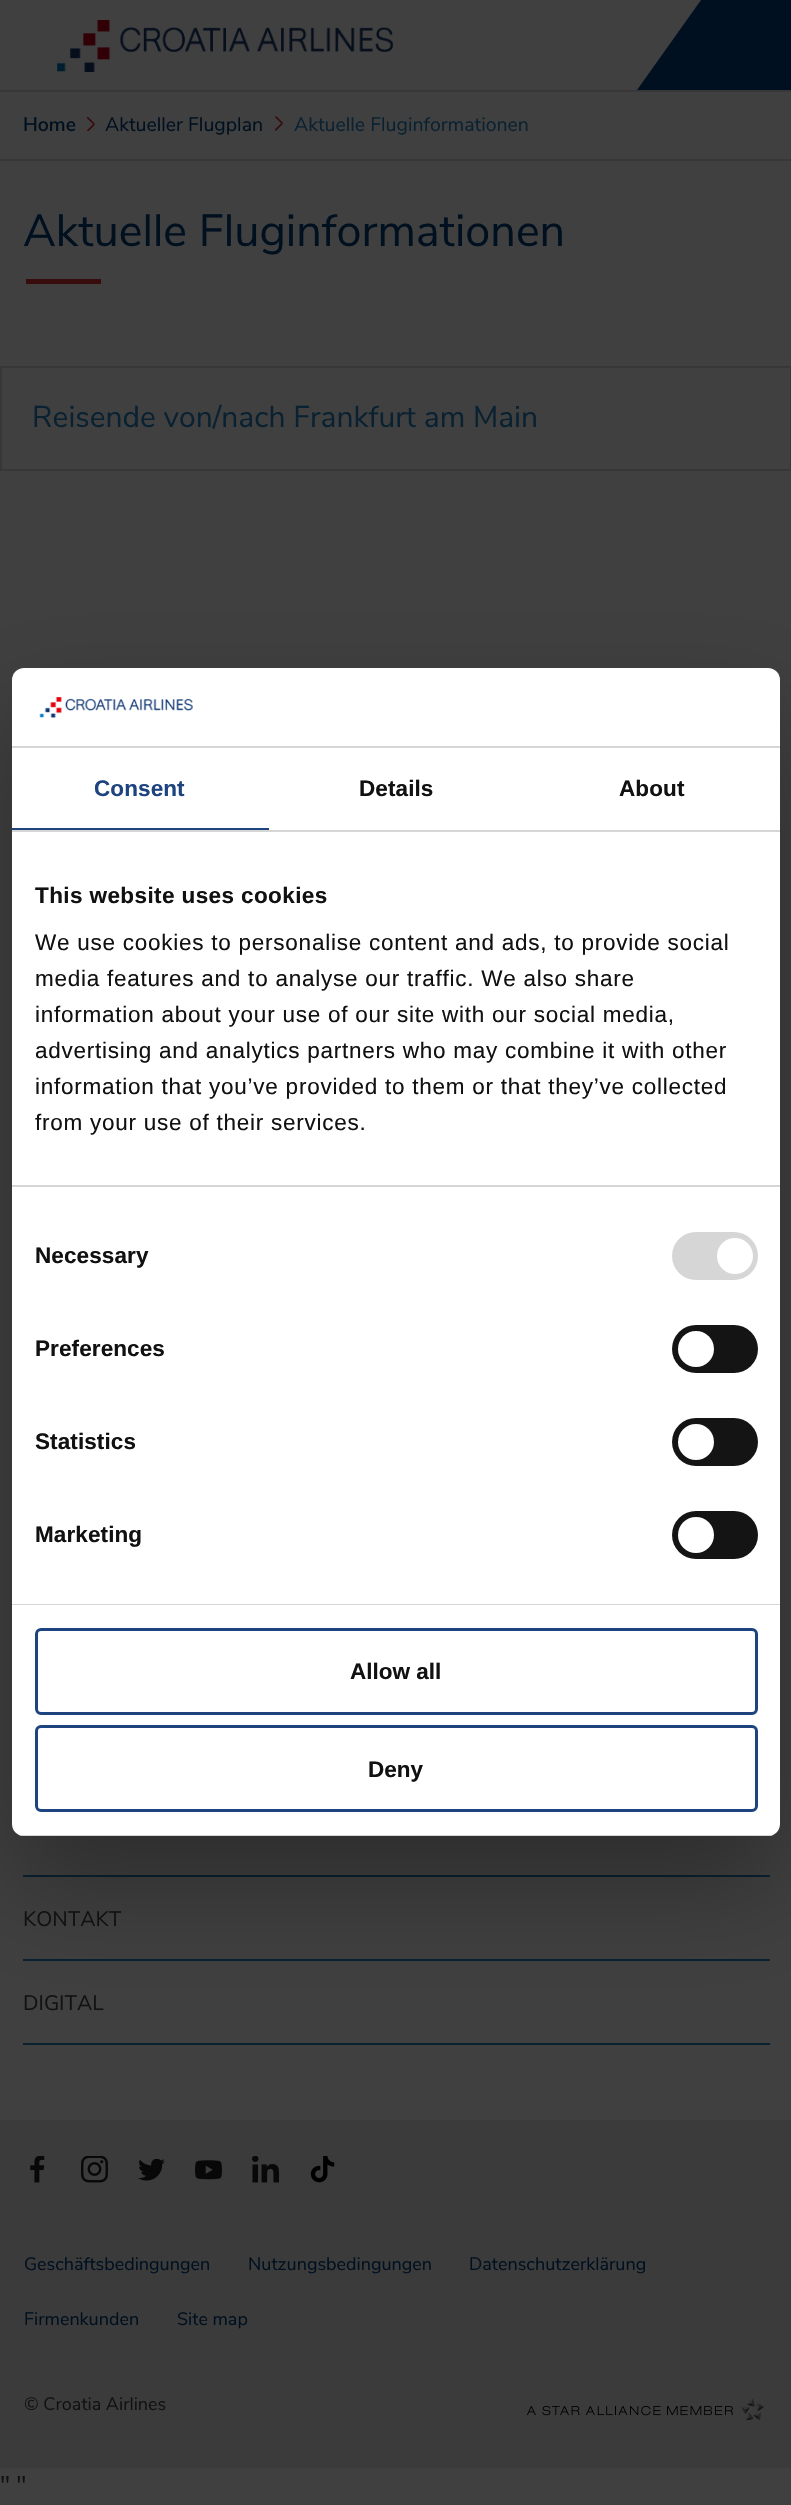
static SkFont makeFont(const char* family, int weight, float size, bool italic = false) {
  SkFontStyle style(weight, SkFontStyle::kNormal_Width,
    italic ? SkFontStyle::kItalic_Slant : SkFontStyle::kUpright_Slant);
  SkFont result(fontMgr->matchFamilyStyle(family, style), size);
  result.setSubpixel(true);
  return result;
}

static void text(SkCanvas* c, const char* s, float x, float y, const SkFont& font, SkColor color) {
  SkPaint ink(SkColor4f::FromColor(color));
  ink.setAntiAlias(true);
  c->drawString(s, x, y, font, ink);
}

static void spacedText(SkCanvas* c, const char* s, float x, float y, const SkFont& font, const SkPaint& ink, float letter, float word) {
  std::vector<SkGlyphID> glyphs(font.countText(s, strlen(s), SkTextEncoding::kUTF8));
  std::vector<float> xs(glyphs.size());
  font.textToGlyphs(s, strlen(s), SkTextEncoding::kUTF8, glyphs);
  font.getXPos(glyphs, xs, x);
  float extra = 0;
  for (size_t i = 0; i < glyphs.size(); i++) {
    xs[i] += extra;
    extra += letter + word * (glyphs[i] == font.unicharToGlyph(' '));
  }
  c->drawTextBlob(SkTextBlob::MakeFromPosHGlyphs(glyphs, xs, y, font), 0, 0, ink);
}

static void box(SkCanvas* c, float l, float t, float r, float b, SkColor color) {
  SkPaint ink(SkColor4f::FromColor(color));
  ink.setAntiAlias(true);
  c->drawRect(SkRect::MakeLTRB(l, t, r, b), ink);
}

static void roundBox(SkCanvas* c, float l, float t, float r, float b, float radius, SkColor color) {
  SkPaint ink(SkColor4f::FromColor(color));
  ink.setAntiAlias(true);
  c->drawRoundRect(SkRect::MakeLTRB(l, t, r, b), radius, radius, ink);
}

static void picture(SkCanvas* c, const char* path, float l, float t, float r, float b) {
  auto image = SkImages::DeferredFromEncodedData(SkData::MakeFromFileName(path));
  c->drawImageRect(image, SkRect::MakeLTRB(l, t, r, b), SkSamplingOptions());
}

void draw(SkCanvas* c) {
  SkPaint paint;
  paint.setAntiAlias(true);
  c->clear(0xff404040);
  picture(c, "img_01.png", 57, 20, 393, 72);
  box(c, 727, 0, 791, 90, 0xff011020);
  paint.setColor(0xff011020);
  c->drawPath(SkPathBuilder().moveTo(701, 0).lineTo(791, 0).lineTo(727, 90).lineTo(637, 90).close().detach(), paint);
  box(c, 0, 90, 791, 92, 0xff373737);
  box(c, 0, 159, 791, 161, 0xff373737);
  SkFont face1 = makeFont("Nunito Sans", 600, 19.5f);
  text(c, "Home", 23, 131, face1, 0xff00101f);
  picture(c, "img_02.png", 86, 116, 95, 132);
  SkFont face2 = makeFont("Nunito Sans", 400, 19.5f);
  text(c, "Aktueller Flugplan", 105, 131, face2, 0xff00101f);
  picture(c, "img_03.png", 274, 116, 283, 131);
  text(c, "Aktuelle Fluginformationen", 294, 131, face2, 0xff092131);
  SkFont face3 = makeFont("Nunito Sans", 400, 45);
  text(c, "Aktuelle Fluginformationen", 23, 246, face3, 0xff00101f);
  box(c, 26, 279, 101, 284, 0xff380b0c);
  paint.setStyle(SkPaint::kStroke_Style);
  paint.setStrokeWidth(2);
  paint.setColor(0xff373737);
  c->drawRect(SkRect::MakeLTRB(1, 367, 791, 470), paint);
  SkFont face4 = makeFont("Nunito Sans", 400, 30);
  text(c, "Reisende von/nach Frankfurt am Main", 32, 427, face4, 0xff092131);
  box(c, 23, 1875, 770, 1877, 0xff092131);
  box(c, 23, 1959, 770, 1961, 0xff092131);
  paint.setStyle(SkPaint::kFill_Style);
  paint.setColor(0x4d000000);
  paint.setMaskFilter(SkMaskFilter::MakeBlur(kNormal_SkBlurStyle, 51));
  c->drawRoundRect(SkRect::MakeLTRB(12, 716, 780, 1884), 12, 12, paint);
  paint.setMaskFilter(nullptr);
  roundBox(c, 12, 668, 780, 1836, 12, 0xffffffff);
  box(c, 12, 746, 780, 748, 0xffd6d6d6);
  picture(c, "img_04.png", 39, 697, 193, 718);
  box(c, 12, 830, 780, 832, 0xffd6d6d6);
  box(c, 12, 828, 269, 830, 0xff1d447e);
  SkFont face5 = makeFont("Liberation Sans", 700, 22.5f);
  paint.setColor(0xff1d447e);
  spacedText(c, "Consent", 94, 796, face5, paint, 0.1f, 0);
  paint.setColor(0xff111111);
  spacedText(c, "Details", 359, 796, face5, paint, 0.1f, 0);
  spacedText(c, "About", 619, 796, face5, paint, 0.1f, 0);
  box(c, 12, 1185, 780, 1187, 0xffd6d6d6);
  spacedText(c, "This website uses cookies", 35, 903, face5, paint, 0.4f, 0);
  SkFont face6 = makeFont("Liberation Sans", 400, 22.5f);
  spacedText(c, "We use cookies to personalise content and ads, to provide social", 35, 950, face6, paint, 0.75f, 0);
  spacedText(c, "media features and to analyse our traffic. We also share", 35, 986, face6, paint, 0.75f, 0);
  spacedText(c, "information about your use of our site with our social media,", 35, 1022, face6, paint, 0.75f, 0);
  spacedText(c, "advertising and analytics partners who may combine it with other", 35, 1058, face6, paint, 0.75f, 0);
  spacedText(c, "information that you’ve provided to them or that they’ve collected", 35, 1094, face6, paint, 0.75f, 0);
  spacedText(c, "from your use of their services.", 35, 1130, face6, paint, 0.75f, 0);
  box(c, 12, 1604, 780, 1605, 0xffd6d6d6);
  spacedText(c, "Necessary", 35, 1263, face5, paint, 0.1f, 0);
  roundBox(c, 672, 1232, 758, 1280, 24, 0xffd6d6d6);
  paint.setColor(0xffffffff);
  c->drawCircle(735, 1256, 18, paint);
  paint.setColor(0xff111111);
  spacedText(c, "Preferences", 35, 1356, face5, paint, 0.1f, 0);
  roundBox(c, 672, 1325, 758, 1373, 24, 0xff141414);
  paint.setColor(0xffffffff);
  c->drawCircle(696, 1349, 18, paint);
  paint.setColor(0xff111111);
  spacedText(c, "Statistics", 35, 1449, face5, paint, 0.1f, 0);
  roundBox(c, 672, 1418, 758, 1466, 24, 0xff141414);
  paint.setColor(0xffffffff);
  c->drawCircle(696, 1442, 18, paint);
  paint.setColor(0xff111111);
  spacedText(c, "Marketing", 35, 1542, face5, paint, 0.1f, 0);
  roundBox(c, 672, 1511, 758, 1559, 24, 0xff141414);
  paint.setColor(0xffffffff);
  c->drawCircle(696, 1535, 18, paint);
  c->save();
  c->clipPath(SkPathBuilder().moveTo(24, 668).lineTo(768, 668).cubicTo(774.5f, 668, 780, 673.5f, 780, 680).lineTo(780, 1824).cubicTo(780, 1830.5f, 774.5f, 1836, 768, 1836).lineTo(24, 1836).cubicTo(17.5f, 1836, 12, 1830.5f, 12, 1824).lineTo(12, 680).cubicTo(12, 673.5f, 17.5f, 668, 24, 668).close().detach(), true);
  box(c, 12, 1835, 780, 1836, 0xffd6d6d6);
  c->restore();
  paint.setStyle(SkPaint::kStroke_Style);
  paint.setStrokeWidth(3);
  paint.setColor(0xff1d447e);
  c->drawRoundRect(SkRect::MakeLTRB(36.5f, 1629.5f, 756.5f, 1713.5f), 4.5f, 4.5f, paint);
  text(c, "Allow all", 350, 1679, face5, 0xff111111);
  c->drawRoundRect(SkRect::MakeLTRB(36.5f, 1726.5f, 756.5f, 1810.5f), 4.5f, 4.5f, paint);
  text(c, "Deny", 368, 1777, face5, 0xff111111);
  SkFont face7 = makeFont("Nunito Sans", 400, 21);
  text(c, "KONTAKT", 23, 1926, face7, 0xff111111);
  box(c, 23, 2043, 770, 2045, 0xff092131);
  text(c, "DIGITAL", 23, 2010, face7, 0xff111111);
  box(c, 0, 2120, 791, 2468, 0xff3b3b3b);
  picture(c, "img_05.png", 30, 2156, 45, 2183);
  picture(c, "img_06.png", 81, 2156, 108, 2183);
  picture(c, "img_07.png", 138, 2159, 165, 2181);
  picture(c, "img_08.png", 195, 2160, 222, 2180);
  picture(c, "img_09.png", 252, 2156, 279, 2183);
  picture(c, "img_10.png", 310, 2156, 335, 2183);
  SkFont face8 = makeFont("Nunito Sans", 400, 18);
  text(c, "Geschäftsbedingungen", 24, 2270, face8, 0xff00101f);
  text(c, "Nutzungsbedingungen", 248, 2270, face8, 0xff00101f);
  text(c, "Datenschutzerklärung", 469, 2270, face8, 0xff00101f);
  text(c, "Firmenkunden", 24, 2325, face8, 0xff00101f);
  text(c, "Site map", 177, 2325, face8, 0xff00101f);
  text(c, "© Croatia Airlines", 24, 2410, face8, 0xff111111);
  picture(c, "img_11.png", 527, 2399, 764, 2421);
  SkFont face9 = makeFont("Nunito Sans", 400, 24);
  text(c, "\" \"", 0, 2493, face9, 0xff111111);
}
